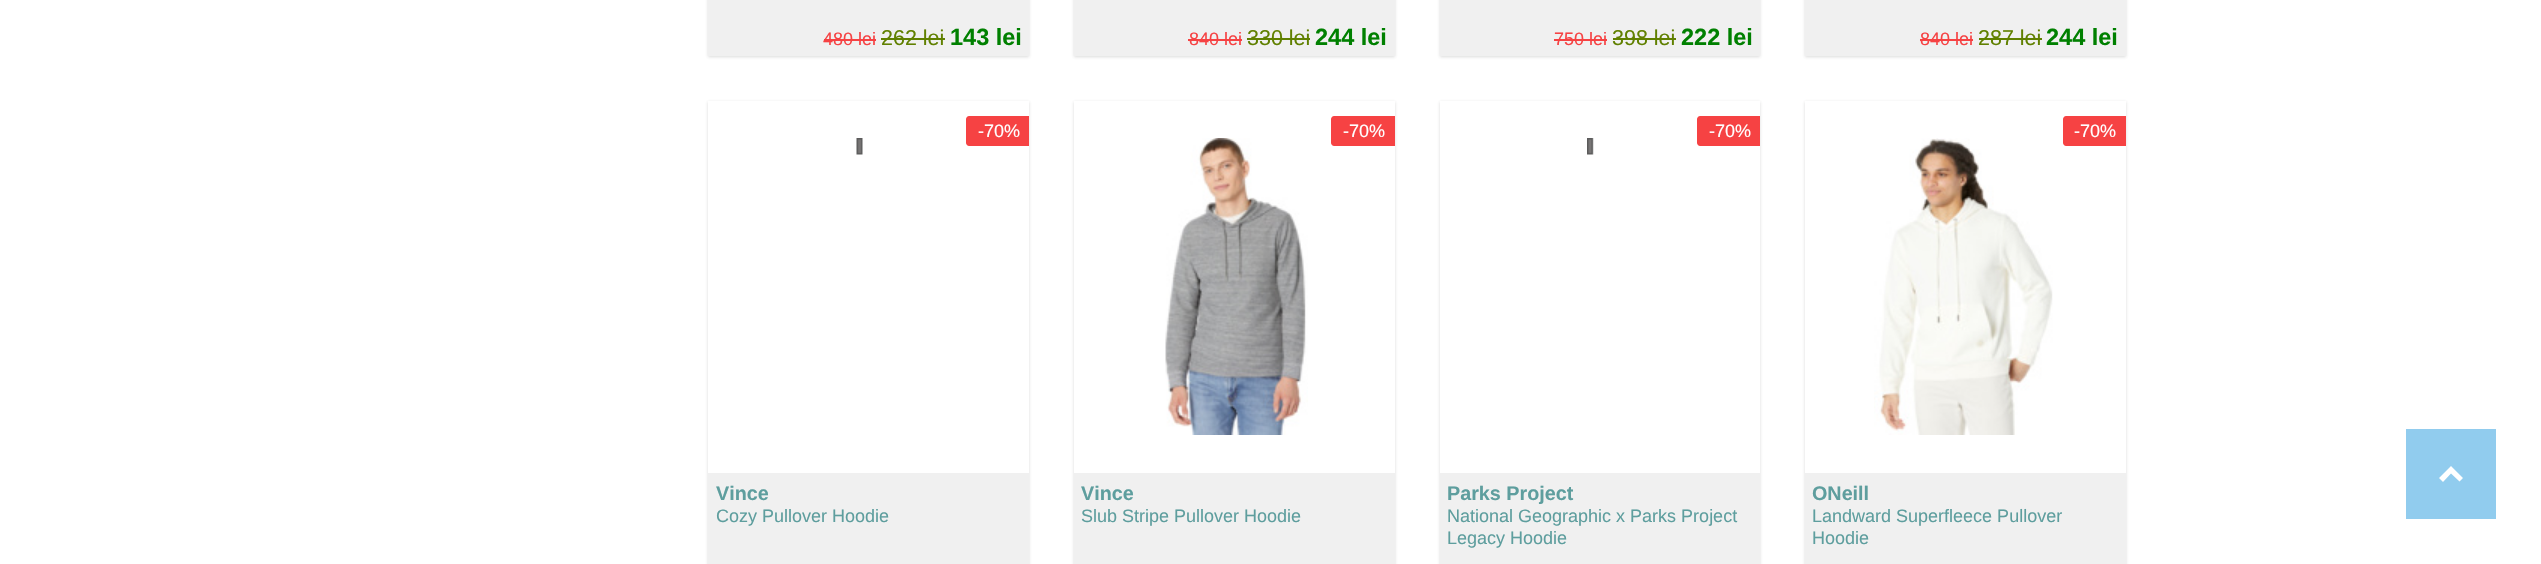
static SkFont makeFont(const char* family, int weight, float size, bool italic = false) {
  SkFontStyle style(weight, SkFontStyle::kNormal_Width,
    italic ? SkFontStyle::kItalic_Slant : SkFontStyle::kUpright_Slant);
  SkFont result(fontMgr->matchFamilyStyle(family, style), size);
  result.setSubpixel(true);
  return result;
}

static void text(SkCanvas* c, const char* s, float x, float y, const SkFont& font, SkColor color) {
  SkPaint ink(SkColor4f::FromColor(color));
  ink.setAntiAlias(true);
  c->drawString(s, x, y, font, ink);
}

static void box(SkCanvas* c, float l, float t, float r, float b, SkColor color) {
  SkPaint ink(SkColor4f::FromColor(color));
  ink.setAntiAlias(true);
  c->drawRect(SkRect::MakeLTRB(l, t, r, b), ink);
}

static void picture(SkCanvas* c, const char* path, float l, float t, float r, float b) {
  auto image = SkImages::DeferredFromEncodedData(SkData::MakeFromFileName(path));
  c->drawImageRect(image, SkRect::MakeLTRB(l, t, r, b), SkSamplingOptions());
}

void draw(SkCanvas* c) {
  SkPaint paint;
  paint.setAntiAlias(true);
  c->clear(0xffffffff);
  paint.setColor(0x33474948);
  paint.setMaskFilter(SkMaskFilter::MakeBlur(kNormal_SkBlurStyle, 1.5f));
  c->drawRect(SkRect::MakeLTRB(708, -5, 1029, 57), paint);
  paint.setMaskFilter(nullptr);
  box(c, 708, 0, 1029, 56, 0xfff0f0f0);
  SkFont face1 = makeFont("Liberation Sans", 400, 18);
  text(c, "480 lei", 823, 45, face1, 0xfff64243);
  box(c, 824, 39, 876, 41, 0xfff64243);
  SkFont face2 = makeFont("Liberation Sans", 400, 21.5f);
  text(c, "262 lei", 881, 45, face2, 0xff608000);
  box(c, 881, 38, 945, 40, 0xff608000);
  SkFont face3 = makeFont("Liberation Sans", 700, 23.5f);
  text(c, "143 lei", 950, 45, face3, 0xff008000);
  paint.setMaskFilter(SkMaskFilter::MakeBlur(kNormal_SkBlurStyle, 1.5f));
  c->drawRect(SkRect::MakeLTRB(1074, -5, 1395, 57), paint);
  paint.setMaskFilter(nullptr);
  box(c, 1074, 0, 1395, 56, 0xfff0f0f0);
  text(c, "840 lei", 1189, 45, face1, 0xfff64243);
  box(c, 1188, 39, 1242, 41, 0xfff64243);
  text(c, "330 lei", 1247, 45, face2, 0xff608000);
  box(c, 1247, 38, 1310, 40, 0xff608000);
  text(c, "244 lei", 1315, 45, face3, 0xff008000);
  paint.setMaskFilter(SkMaskFilter::MakeBlur(kNormal_SkBlurStyle, 1.5f));
  c->drawRect(SkRect::MakeLTRB(1440, -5, 1760, 57), paint);
  paint.setMaskFilter(nullptr);
  box(c, 1440, 0, 1760, 56, 0xfff0f0f0);
  text(c, "750 lei", 1554, 45, face1, 0xfff64243);
  box(c, 1554, 39, 1607, 41, 0xfff64243);
  text(c, "398 lei", 1612, 45, face2, 0xff608000);
  box(c, 1613, 38, 1676, 40, 0xff608000);
  text(c, "222 lei", 1681, 45, face3, 0xff008000);
  paint.setMaskFilter(SkMaskFilter::MakeBlur(kNormal_SkBlurStyle, 1.5f));
  c->drawRect(SkRect::MakeLTRB(1805, -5, 2126, 57), paint);
  paint.setMaskFilter(nullptr);
  box(c, 1805, 0, 2126, 56, 0xfff0f0f0);
  text(c, "840 lei", 1920, 45, face1, 0xfff64243);
  box(c, 1920, 39, 1973, 41, 0xfff64243);
  text(c, "287 lei", 1978, 45, face2, 0xff608000);
  box(c, 1979, 38, 2042, 40, 0xff608000);
  text(c, "244 lei", 2046, 45, face3, 0xff008000);
  c->save();
  c->clipPath(SkPathBuilder(SkPathFillType::kEvenOdd).moveTo(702, 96).lineTo(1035, 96).lineTo(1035, 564).lineTo(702, 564).close().moveTo(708, 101).lineTo(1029, 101).lineTo(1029, 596).lineTo(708, 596).close().detach(), true);
  paint.setMaskFilter(SkMaskFilter::MakeBlur(kNormal_SkBlurStyle, 1.5f));
  c->drawRect(SkRect::MakeLTRB(708, 102, 1029, 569), paint);
  paint.setMaskFilter(nullptr);
  c->restore();
  paint.setColor(0xfff64243);
  c->drawPath(SkPathBuilder().moveTo(969, 116).lineTo(1029, 116).lineTo(1029, 146).lineTo(969, 146).cubicTo(967.5f, 146, 966, 144.5f, 966, 143).lineTo(966, 119).cubicTo(966, 117.5f, 967.5f, 116, 969, 116).close().detach(), paint);
  text(c, "-70%", 978, 137, face1, 0xffffffff);
  picture(c, "img_01.png", 856, 138, 863, 155);
  box(c, 708, 473, 1029, 564, 0xfff0f0f0);
  SkFont face4 = makeFont("Liberation Sans", 700, 19.75f);
  text(c, "Vince", 716, 500, face4, 0xff5e9e9e);
  text(c, "Cozy Pullover Hoodie", 716, 522, face1, 0xff5e9e9e);
  c->save();
  c->clipPath(SkPathBuilder(SkPathFillType::kEvenOdd).moveTo(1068, 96).lineTo(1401, 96).lineTo(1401, 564).lineTo(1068, 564).close().moveTo(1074, 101).lineTo(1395, 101).lineTo(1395, 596).lineTo(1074, 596).close().detach(), true);
  paint.setColor(0x33474948);
  paint.setMaskFilter(SkMaskFilter::MakeBlur(kNormal_SkBlurStyle, 1.5f));
  c->drawRect(SkRect::MakeLTRB(1074, 102, 1395, 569), paint);
  paint.setMaskFilter(nullptr);
  c->restore();
  paint.setColor(0xfff64243);
  c->drawPath(SkPathBuilder().moveTo(1334, 116).lineTo(1395, 116).lineTo(1395, 146).lineTo(1334, 146).cubicTo(1332.5f, 146, 1331, 144.5f, 1331, 143).lineTo(1331, 119).cubicTo(1331, 117.5f, 1332.5f, 116, 1334, 116).close().detach(), paint);
  text(c, "-70%", 1343, 137, face1, 0xffffffff);
  picture(c, "img_02.png", 1165, 138, 1308, 435);
  box(c, 1074, 473, 1395, 564, 0xfff0f0f0);
  text(c, "Vince", 1081, 500, face4, 0xff5e9e9e);
  text(c, "Slub Stripe Pullover Hoodie", 1081, 522, face1, 0xff5e9e9e);
  paint.setColor(0x33474948);
  paint.setMaskFilter(SkMaskFilter::MakeBlur(kNormal_SkBlurStyle, 1.5f));
  c->drawRect(SkRect::MakeLTRB(1440, 102, 1760, 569), paint);
  paint.setMaskFilter(nullptr);
  box(c, 1440, 101, 1760, 473, 0xffffffff);
  paint.setColor(0xfff64243);
  c->drawPath(SkPathBuilder().moveTo(1700, 116).lineTo(1760, 116).lineTo(1760, 146).lineTo(1700, 146).cubicTo(1698.5f, 146, 1697, 144.5f, 1697, 143).lineTo(1697, 119).cubicTo(1697, 117.5f, 1698.5f, 116, 1700, 116).close().detach(), paint);
  text(c, "-70%", 1709, 137, face1, 0xffffffff);
  picture(c, "img_03.png", 1587, 138, 1594, 155);
  box(c, 1440, 473, 1760, 564, 0xfff0f0f0);
  text(c, "Parks Project", 1447, 500, face4, 0xff5e9e9e);
  text(c, "National Geographic x Parks Project", 1447, 522, face1, 0xff5e9e9e);
  text(c, "Legacy Hoodie", 1447, 544, face1, 0xff5e9e9e);
  paint.setColor(0x33474948);
  paint.setMaskFilter(SkMaskFilter::MakeBlur(kNormal_SkBlurStyle, 1.5f));
  c->drawRect(SkRect::MakeLTRB(1805, 102, 2126, 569), paint);
  paint.setMaskFilter(nullptr);
  box(c, 1805, 101, 2126, 473, 0xffffffff);
  paint.setColor(0xfff64243);
  c->drawPath(SkPathBuilder().moveTo(2066, 116).lineTo(2126, 116).lineTo(2126, 146).lineTo(2066, 146).cubicTo(2064.5f, 146, 2063, 144.5f, 2063, 143).lineTo(2063, 119).cubicTo(2063, 117.5f, 2064.5f, 116, 2066, 116).close().detach(), paint);
  text(c, "-70%", 2074, 137, face1, 0xffffffff);
  picture(c, "img_04.png", 1874, 138, 2053, 435);
  box(c, 1805, 473, 2126, 564, 0xfff0f0f0);
  text(c, "ONeill", 1812, 500, face4, 0xff5e9e9e);
  text(c, "Landward Superfleece Pullover", 1812, 522, face1, 0xff5e9e9e);
  text(c, "Hoodie", 1812, 544, face1, 0xff5e9e9e);
  box(c, 2406, 429, 2496, 519, 0xff91ccee);
  paint.setColor(0xffffffff);
  c->drawPath(SkPathBuilder().moveTo(2451, 466).lineTo(2463, 478).lineTo(2459.5f, 481.5f).lineTo(2451, 473.5f).lineTo(2443, 482).lineTo(2439, 478).close().detach(), paint);
}
